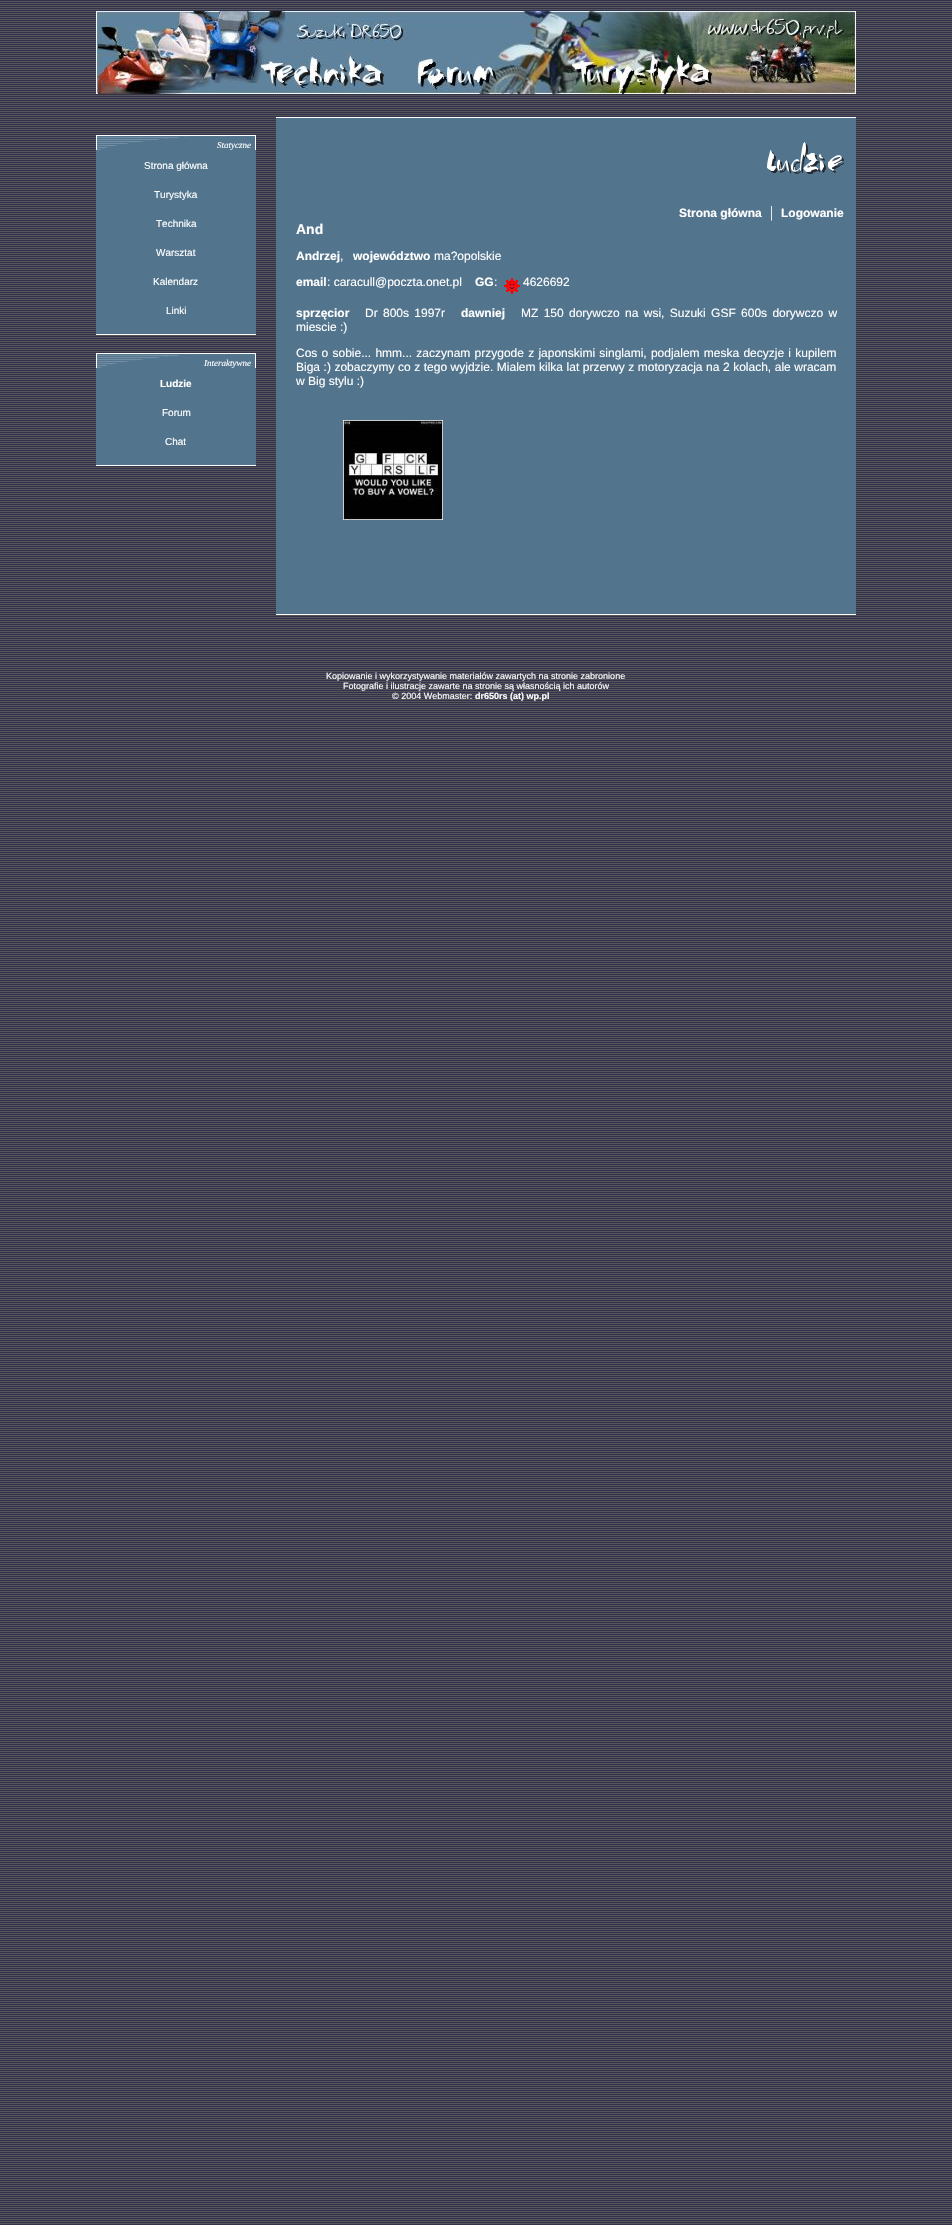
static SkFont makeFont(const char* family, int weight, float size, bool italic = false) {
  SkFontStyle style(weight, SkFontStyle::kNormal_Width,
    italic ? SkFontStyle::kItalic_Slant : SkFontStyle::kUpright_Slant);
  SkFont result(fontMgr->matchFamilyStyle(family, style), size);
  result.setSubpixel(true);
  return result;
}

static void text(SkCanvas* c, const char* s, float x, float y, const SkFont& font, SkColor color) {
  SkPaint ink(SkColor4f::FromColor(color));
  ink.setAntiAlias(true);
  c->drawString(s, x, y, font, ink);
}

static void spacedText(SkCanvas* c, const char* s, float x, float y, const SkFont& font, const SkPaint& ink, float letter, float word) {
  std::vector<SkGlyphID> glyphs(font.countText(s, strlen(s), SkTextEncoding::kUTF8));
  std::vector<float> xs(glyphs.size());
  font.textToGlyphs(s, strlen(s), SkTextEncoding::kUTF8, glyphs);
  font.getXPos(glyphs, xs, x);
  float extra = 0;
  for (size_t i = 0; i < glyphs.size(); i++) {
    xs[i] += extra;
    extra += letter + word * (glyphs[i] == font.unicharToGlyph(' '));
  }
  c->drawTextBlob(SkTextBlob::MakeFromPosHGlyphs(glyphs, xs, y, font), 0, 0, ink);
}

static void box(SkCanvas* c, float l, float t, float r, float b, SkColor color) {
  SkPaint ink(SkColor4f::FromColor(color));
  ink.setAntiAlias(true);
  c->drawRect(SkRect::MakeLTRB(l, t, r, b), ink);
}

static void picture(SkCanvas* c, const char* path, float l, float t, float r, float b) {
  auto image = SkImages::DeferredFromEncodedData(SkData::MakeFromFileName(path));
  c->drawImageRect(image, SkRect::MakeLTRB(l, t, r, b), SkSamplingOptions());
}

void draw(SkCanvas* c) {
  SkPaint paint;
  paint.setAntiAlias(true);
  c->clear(0xffffffff);
  picture(c, "img_01.png", 0, 0, 952, 2225);
  picture(c, "img_02.png", 96, 11, 856, 94);
  picture(c, "img_03.png", 96, 135, 256, 150);
  SkFont face1 = makeFont("Liberation Serif", 400, 9, true);
  text(c, "Statyczne", 217, 148, face1, 0xffffffff);
  box(c, 96, 150, 256, 334, 0xff52748d);
  SkFont face2 = makeFont("Liberation Sans", 400, 10);
  text(c, "Strona główna", 144, 169, face2, 0xffffffff);
  text(c, "Turystyka", 154, 198, face2, 0xffffffff);
  text(c, "Technika", 156, 227, face2, 0xffffffff);
  text(c, "Warsztat", 156, 256, face2, 0xffffffff);
  text(c, "Kalendarz", 153, 285, face2, 0xffffffff);
  text(c, "Linki", 166, 314, face2, 0xffffffff);
  box(c, 96, 334, 256, 335, 0xffffffff);
  picture(c, "img_03.png", 96, 353, 256, 368);
  text(c, "Interaktywne", 204, 366, face1, 0xffffffff);
  box(c, 96, 368, 256, 465, 0xff52748d);
  SkFont face3 = makeFont("Liberation Sans", 700, 10);
  text(c, "Ludzie", 160, 387, face3, 0xffffffff);
  text(c, "Forum", 162, 416, face2, 0xffffffff);
  text(c, "Chat", 165, 445, face2, 0xffffffff);
  box(c, 96, 465, 256, 466, 0xffffffff);
  box(c, 276, 117, 856, 118, 0xffffffff);
  box(c, 276, 118, 856, 614, 0xff52748d);
  picture(c, "img_04.png", 767, 142, 845, 174);
  SkFont face4 = makeFont("Liberation Sans", 700, 12);
  text(c, "Strona główna", 679, 217, face4, 0xffffffff);
  SkFont face5 = makeFont("Liberation Serif", 400, 16);
  text(c, "|", 770, 217, face5, 0xffffffff);
  text(c, "Logowanie", 781, 217, face4, 0xffffffff);
  SkFont face6 = makeFont("Liberation Sans", 700, 14);
  text(c, "And", 296, 234, face6, 0xffffffff);
  text(c, "Andrzej", 296, 260, face4, 0xffffffff);
  SkFont face7 = makeFont("Liberation Sans", 400, 12);
  text(c, ",", 340, 260, face7, 0xffffffff);
  text(c, "województwo", 353, 260, face4, 0xffffffff);
  text(c, "ma?opolskie", 434, 260, face7, 0xffffffff);
  text(c, "email", 296, 286, face4, 0xffffffff);
  text(c, ": caracull@poczta.onet.pl", 327, 286, face7, 0xffffffff);
  text(c, "GG", 475, 286, face4, 0xffffffff);
  text(c, ":", 494, 286, face7, 0xffffffff);
  picture(c, "img_05.png", 504, 278, 520, 294);
  text(c, "4626692", 523, 286, face7, 0xffffffff);
  text(c, "sprzęcior", 296, 317, face4, 0xffffffff);
  paint.setColor(0xffffffff);
  spacedText(c, "Dr 800s 1997r", 365, 317, face7, paint, 0, 2);
  text(c, "dawniej", 461, 317, face4, 0xffffffff);
  spacedText(c, "MZ 150 dorywczo na wsi, Suzuki GSF 600s dorywczo w", 521, 317, face7, paint, 0, 2);
  text(c, "miescie :)", 296, 331, face7, 0xffffffff);
  spacedText(c, "Cos o sobie... hmm... zaczynam przygode z japonskimi singlami, podjalem meska decyzje i kupilem", 296, 357, face7, paint, 0, 0.9f);
  spacedText(c, "Biga :) zobaczymy co z tego wyjdzie. Mialem kilka lat przerwy z motoryzacja na 2 kolach, ale wracam", 296, 371, face7, paint, 0, 0.2f);
  text(c, "w Big stylu :)", 296, 385, face7, 0xffffffff);
  picture(c, "img_06.png", 343, 420, 443, 520);
  box(c, 276, 614, 856, 615, 0xffffffff);
  SkFont face8 = makeFont("Liberation Sans", 400, 9);
  text(c, "Kopiowanie i wykorzystywanie materiałów zawartych na stronie zabronione", 326, 679, face8, 0xffffffff);
  text(c, "Fotografie i ilustracje zawarte na stronie są własnością ich autorów", 343, 689, face8, 0xffffffff);
  text(c, "© 2004 Webmaster:", 392, 699, face8, 0xffffffff);
  SkFont face9 = makeFont("Liberation Sans", 700, 9);
  text(c, "dr650rs (at) wp.pl", 475, 699, face9, 0xffffffff);
}
